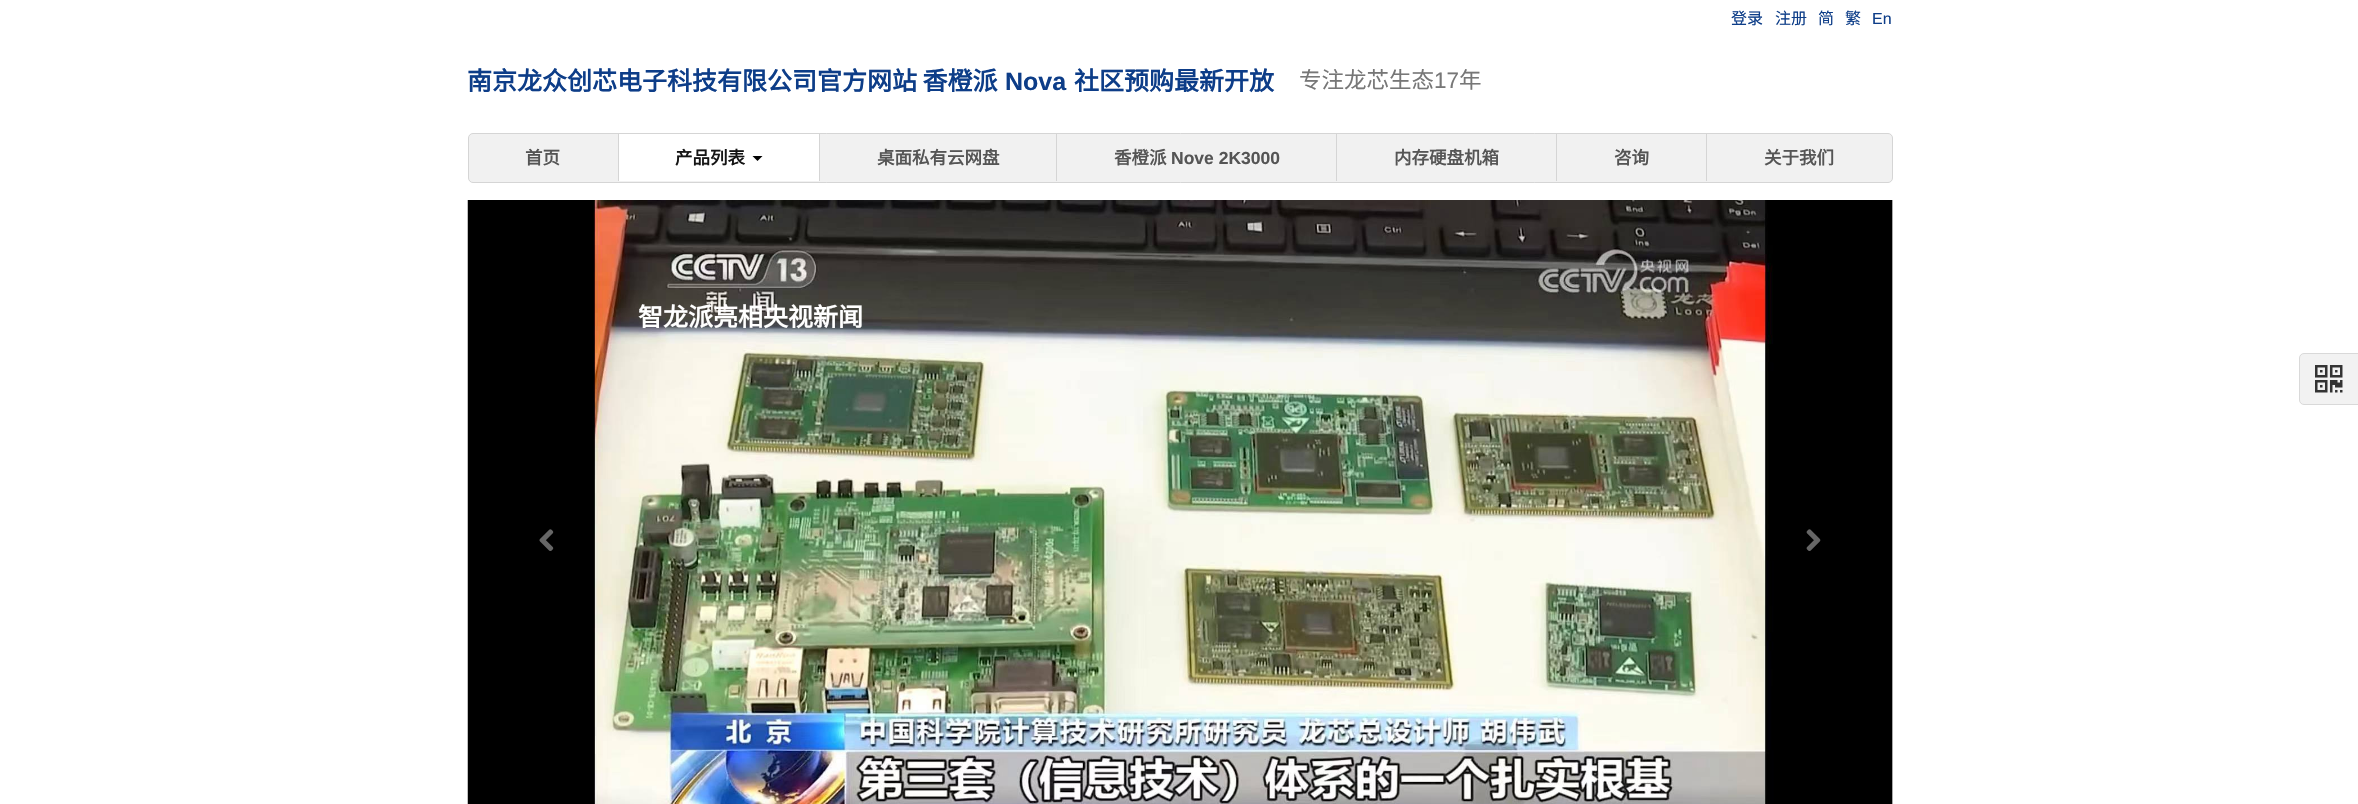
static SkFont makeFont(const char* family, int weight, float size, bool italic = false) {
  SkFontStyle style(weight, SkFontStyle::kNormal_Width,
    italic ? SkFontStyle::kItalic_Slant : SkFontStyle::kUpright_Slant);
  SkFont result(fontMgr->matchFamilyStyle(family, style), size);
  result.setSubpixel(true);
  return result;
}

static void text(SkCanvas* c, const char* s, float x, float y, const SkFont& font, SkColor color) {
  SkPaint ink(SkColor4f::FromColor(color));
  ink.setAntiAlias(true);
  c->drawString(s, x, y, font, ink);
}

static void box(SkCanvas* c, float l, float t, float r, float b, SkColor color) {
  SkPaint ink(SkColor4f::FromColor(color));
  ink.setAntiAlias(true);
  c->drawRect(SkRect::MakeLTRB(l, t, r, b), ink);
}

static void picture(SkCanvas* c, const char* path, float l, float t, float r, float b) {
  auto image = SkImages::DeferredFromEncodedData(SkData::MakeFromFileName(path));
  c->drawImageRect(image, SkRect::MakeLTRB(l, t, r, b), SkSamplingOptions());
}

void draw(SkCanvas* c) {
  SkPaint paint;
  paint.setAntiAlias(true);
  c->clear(0xffffffff);
  SkFont face1 = makeFont("Noto Sans CJK SC", 400, 16);
  text(c, "登录", 1731, 24, face1, 0xff0d3d88);
  text(c, "注册", 1775, 24, face1, 0xff0d3d88);
  text(c, "简", 1818, 24, face1, 0xff0d3d88);
  text(c, "繁", 1845, 24, face1, 0xff0d3d88);
  SkFont face2 = makeFont("Liberation Sans", 400, 16);
  text(c, "En", 1872, 24, face2, 0xff0d3d88);
  SkFont face3 = makeFont("Noto Sans CJK SC", 700, 25);
  text(c, "南京龙众创芯电子科技有限公司官方网站 香橙派", 467, 90, face3, 0xff0d3d88);
  SkFont face4 = makeFont("Liberation Sans", 700, 25);
  text(c, "Nova", 1005, 90, face4, 0xff0d3d88);
  text(c, "社区预购最新开放", 1074, 90, face3, 0xff0d3d88);
  SkFont face5 = makeFont("Noto Sans CJK SC", 400, 22.5f);
  text(c, "专注龙芯生态", 1299, 88, face5, 0xff777777);
  SkFont face6 = makeFont("Liberation Sans", 400, 22.5f);
  text(c, "17", 1434, 88, face6, 0xff777777);
  text(c, "年", 1459, 88, face5, 0xff777777);
  paint.setColor(0xfff1f1f1);
  c->drawRoundRect(SkRect::MakeLTRB(468.5f, 133.5f, 1892.5f, 182.5f), 4.5f, 4.5f, paint);
  paint.setStyle(SkPaint::kStroke_Style);
  paint.setStrokeWidth(1);
  paint.setColor(0xffd5d5d5);
  c->drawRoundRect(SkRect::MakeLTRB(468.5f, 133.5f, 1892.5f, 182.5f), 4.5f, 4.5f, paint);
  box(c, 618, 134, 619, 181, 0xffd5d5d5);
  SkFont face7 = makeFont("Noto Sans CJK SC", 700, 17.5f);
  text(c, "首页", 525, 164, face7, 0xff555555);
  box(c, 619, 134, 819, 181, 0xffffffff);
  box(c, 819, 134, 820, 181, 0xffd5d5d5);
  text(c, "产品列表", 675, 164, face7, 0xff151515);
  paint.setStyle(SkPaint::kFill_Style);
  paint.setColor(0xff010101);
  c->drawPath(SkPathBuilder().moveTo(752.5f, 156).lineTo(762.5f, 156).lineTo(757.5f, 161).close().detach(), paint);
  box(c, 1056, 134, 1057, 181, 0xffd5d5d5);
  text(c, "桌面私有云网盘", 877, 164, face7, 0xff555555);
  box(c, 1336, 134, 1337, 181, 0xffd5d5d5);
  text(c, "香橙派", 1114, 164, face7, 0xff555555);
  SkFont face8 = makeFont("Liberation Sans", 700, 17.5f);
  text(c, "Nove 2K3000", 1171, 164, face8, 0xff555555);
  box(c, 1556, 134, 1557, 181, 0xffd5d5d5);
  text(c, "内存硬盘机箱", 1394, 164, face7, 0xff555555);
  box(c, 1706, 134, 1707, 181, 0xffd5d5d5);
  text(c, "咨询", 1614, 164, face7, 0xff555555);
  text(c, "关于我们", 1764, 164, face7, 0xff555555);
  picture(c, "img_01.png", 467, 200, 1893, 804);
  text(c, "智龙派亮相央视新闻", 638, 326, face3, 0xffffffff);
  {
    const SkColor colors[] = {0x00000000, 0x1f000000};
    const float stops[] = {0, 1};
    const SkPoint ends[] = {{1750, 529}, {1893, 529}};
    paint.setShader(SkGradientShader::MakeLinear(ends, colors, stops, 2, SkTileMode::kClamp));
    paint.setAlpha(255);
  }
  c->drawRect(SkRect::MakeLTRB(1892, 200, 1893, 804), paint);
  picture(c, "img_02.png", 1806, 529, 1821, 551);
  picture(c, "img_03.png", 539, 529, 554, 551);
  paint.setShader(nullptr);
  paint.setColor(0xfff2f2f2);
  c->drawPath(SkPathBuilder().moveTo(2304, 353.5f).lineTo(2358.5f, 353.5f).lineTo(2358.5f, 404.5f).lineTo(2304, 404.5f).cubicTo(2301.5f, 404.5f, 2299.5f, 402.5f, 2299.5f, 400).lineTo(2299.5f, 358).cubicTo(2299.5f, 355.5f, 2301.5f, 353.5f, 2304, 353.5f).close().detach(), paint);
  paint.setStyle(SkPaint::kStroke_Style);
  paint.setColor(0xffd9d9d9);
  c->drawPath(SkPathBuilder().moveTo(2304, 353.5f).lineTo(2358.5f, 353.5f).lineTo(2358.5f, 404.5f).lineTo(2304, 404.5f).cubicTo(2301.5f, 404.5f, 2299.5f, 402.5f, 2299.5f, 400).lineTo(2299.5f, 358).cubicTo(2299.5f, 355.5f, 2301.5f, 353.5f, 2304, 353.5f).close().detach(), paint);
  picture(c, "img_04.png", 2315, 365, 2343, 393);
}
